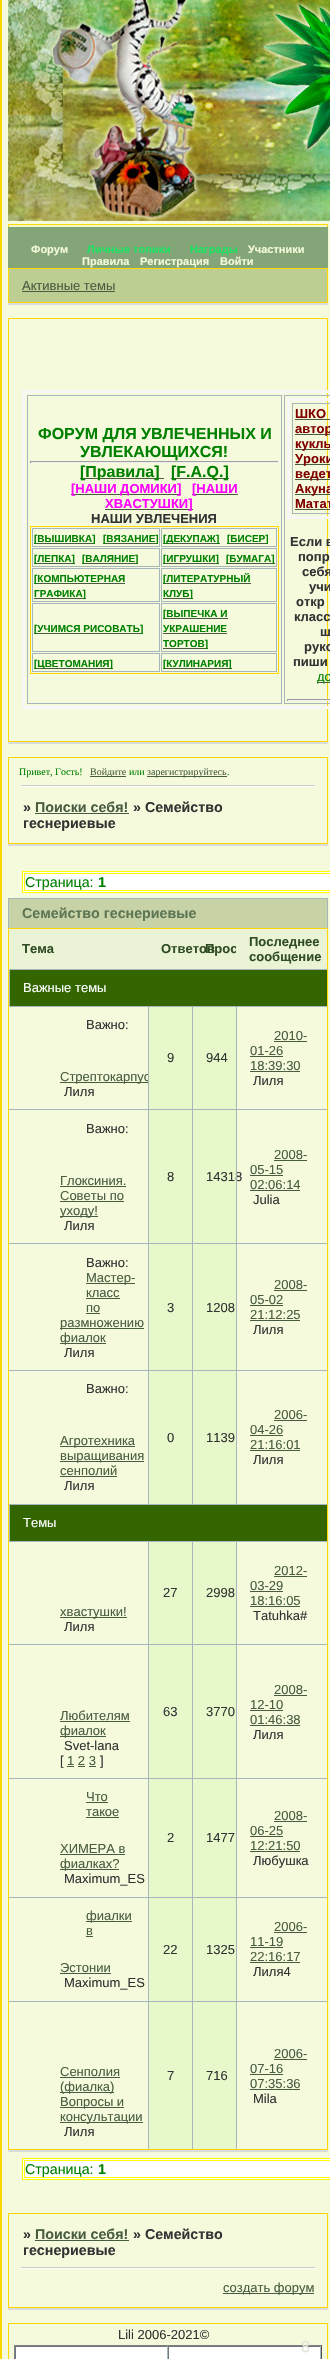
static SkFont makeFont(const char* family, int weight, float size, bool italic = false) {
  SkFontStyle style(weight, SkFontStyle::kNormal_Width,
    italic ? SkFontStyle::kItalic_Slant : SkFontStyle::kUpright_Slant);
  SkFont result(fontMgr->matchFamilyStyle(family, style), size);
  result.setSubpixel(true);
  return result;
}

static void text(SkCanvas* c, const char* s, float x, float y, const SkFont& font, SkColor color) {
  SkPaint ink(SkColor4f::FromColor(color));
  ink.setAntiAlias(true);
  c->drawString(s, x, y, font, ink);
}

static void box(SkCanvas* c, float l, float t, float r, float b, SkColor color) {
  SkPaint ink(SkColor4f::FromColor(color));
  ink.setAntiAlias(true);
  c->drawRect(SkRect::MakeLTRB(l, t, r, b), ink);
}

static void picture(SkCanvas* c, const char* path, float l, float t, float r, float b) {
  auto image = SkImages::DeferredFromEncodedData(SkData::MakeFromFileName(path));
  c->drawImageRect(image, SkRect::MakeLTRB(l, t, r, b), SkSamplingOptions());
}

void draw(SkCanvas* c) {
  SkPaint paint;
  paint.setAntiAlias(true);
  c->clear(0xfff4fadb);
  paint.setStyle(SkPaint::kStroke_Style);
  paint.setStrokeWidth(2);
  paint.setColor(0xffffd700);
  c->drawRect(SkRect::MakeLTRB(1, -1, 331, 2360), paint);
  picture(c, "img_01.png", 8, 0, 330, 221);
  box(c, 8, 224, 328, 225, 0xffffd700);
  box(c, 327, 224, 328, 227, 0xffffd700);
  box(c, 8, 224, 9, 227, 0xffffd700);
  box(c, 9, 225, 327, 227, 0xfff0facc);
  box(c, 8, 227, 328, 268, 0xff84a577);
  SkFont face1 = makeFont("Liberation Sans", 700, 11);
  text(c, "Форум", 31, 253, face1, 0xfff5fadc);
  text(c, "Личные топики", 87, 253, face1, 0xff1be462);
  text(c, "Награды", 190, 253, face1, 0xff1be462);
  text(c, "Участники", 248, 253, face1, 0xfff5fadc);
  text(c, "Правила", 82, 265, face1, 0xfff5fadc);
  text(c, "Регистрация", 140, 265, face1, 0xfff5fadc);
  text(c, "Войти", 220, 265, face1, 0xfff5fadc);
  box(c, 8, 303, 328, 305, 0xffdbdbdb);
  paint.setStyle(SkPaint::kFill_Style);
  paint.setColor(0xffbdce93);
  c->drawRect(SkRect::MakeLTRB(8.5f, 268.5f, 327.5f, 302.5f), paint);
  paint.setStyle(SkPaint::kStroke_Style);
  paint.setStrokeWidth(1);
  paint.setColor(0xffffd700);
  c->drawRect(SkRect::MakeLTRB(8.5f, 268.5f, 327.5f, 302.5f), paint);
  SkFont face2 = makeFont("Liberation Sans", 400, 13);
  text(c, "Активные темы", 22, 290, face2, 0xff495c41);
  box(c, 22, 291, 115, 292, 0xff495c41);
  box(c, 8, 742, 328, 744, 0xffdbdbdb);
  c->drawRect(SkRect::MakeLTRB(8.5f, 318.5f, 327.5f, 741.5f), paint);
  paint.setStrokeWidth(3);
  paint.setColor(0xfff7f7f7);
  c->drawRect(SkRect::MakeLTRB(23.5f, 391.5f, 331.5f, 707.5f), paint);
  paint.setStrokeWidth(1);
  paint.setColor(0xffa7b5bd);
  c->drawRect(SkRect::MakeLTRB(27.5f, 395.5f, 281.5f, 703.5f), paint);
  SkFont face3 = makeFont("Liberation Sans", 700, 16);
  text(c, "ФОРУМ ДЛЯ УВЛЕЧЕННЫХ И", 38, 439, face3, 0xff008000);
  text(c, "УВЛЕКАЮЩИХСЯ!", 80, 457, face3, 0xff008000);
  box(c, 30, 461, 279, 462, 0xff9f9f9f);
  box(c, 278, 461, 279, 463, 0xffeeeeee);
  box(c, 30, 462, 279, 463, 0xffeeeeee);
  box(c, 30, 461, 31, 463, 0xff9f9f9f);
  box(c, 80, 478, 164, 479, 0xff495c41);
  text(c, "[Правила]", 80, 477, face3, 0xff008000);
  box(c, 171, 478, 229, 479, 0xff495c41);
  text(c, "[F.A.Q.]", 171, 477, face3, 0xff008000);
  box(c, 192, 494, 238, 495, 0xff495c41);
  SkFont face4 = makeFont("Liberation Sans", 700, 13);
  text(c, "[НАШИ", 192, 493, face4, 0xffff00ff);
  box(c, 105, 509, 193, 510, 0xff495c41);
  text(c, "ХВАСТУШКИ]", 105, 508, face4, 0xffff00ff);
  text(c, "НАШИ УВЛЕЧЕНИЯ", 91, 523, face4, 0xff333333);
  paint.setColor(0xffffd700);
  c->drawRect(SkRect::MakeLTRB(30.5f, 526.5f, 278.5f, 673.5f), paint);
  paint.setColor(0xffa7b5bd);
  c->drawRect(SkRect::MakeLTRB(32.5f, 528.5f, 159.5f, 546.5f), paint);
  box(c, 34, 543, 95, 544, 0xff495c41);
  SkFont face5 = makeFont("Liberation Sans", 700, 10);
  text(c, "[ВЫШИВКА]", 34, 542, face5, 0xff008000);
  box(c, 103, 543, 158, 544, 0xff495c41);
  text(c, "[ВЯЗАНИЕ]", 103, 542, face5, 0xff008000);
  c->drawRect(SkRect::MakeLTRB(161.5f, 528.5f, 276.5f, 546.5f), paint);
  box(c, 163, 543, 220, 544, 0xff495c41);
  text(c, "[ДЕКУПАЖ]", 163, 542, face5, 0xff008000);
  box(c, 227, 543, 268, 544, 0xff495c41);
  text(c, "[БИСЕР]", 227, 542, face5, 0xff008000);
  c->drawRect(SkRect::MakeLTRB(32.5f, 548.5f, 159.5f, 566.5f), paint);
  box(c, 34, 563, 75, 564, 0xff495c41);
  text(c, "[ЛЕПКА]", 34, 562, face5, 0xff008000);
  box(c, 82, 563, 138, 564, 0xff495c41);
  text(c, "[ВАЛЯНИЕ]", 82, 562, face5, 0xff008000);
  c->drawRect(SkRect::MakeLTRB(161.5f, 548.5f, 276.5f, 566.5f), paint);
  box(c, 163, 563, 219, 564, 0xff495c41);
  text(c, "[ИГРУШКИ]", 163, 562, face5, 0xff008000);
  box(c, 226, 563, 275, 564, 0xff495c41);
  text(c, "[БУМАГА]", 226, 562, face5, 0xff008000);
  c->drawRect(SkRect::MakeLTRB(32.5f, 568.5f, 159.5f, 601.5f), paint);
  box(c, 34, 583, 125, 584, 0xff495c41);
  text(c, "[КОМПЬЮТЕРНАЯ", 34, 582, face5, 0xff008000);
  box(c, 34, 598, 86, 599, 0xff495c41);
  text(c, "ГРАФИКА]", 34, 597, face5, 0xff008000);
  c->drawRect(SkRect::MakeLTRB(161.5f, 568.5f, 276.5f, 601.5f), paint);
  box(c, 163, 583, 251, 584, 0xff495c41);
  text(c, "[ЛИТЕРАТУРНЫЙ", 163, 582, face5, 0xff008000);
  box(c, 163, 598, 193, 599, 0xff495c41);
  text(c, "КЛУБ]", 163, 597, face5, 0xff008000);
  c->drawRect(SkRect::MakeLTRB(32.5f, 603.5f, 159.5f, 651.5f), paint);
  box(c, 34, 633, 143, 634, 0xff495c41);
  text(c, "[УЧИМСЯ РИСОВАТЬ]", 34, 632, face5, 0xff008000);
  c->drawRect(SkRect::MakeLTRB(161.5f, 603.5f, 276.5f, 651.5f), paint);
  box(c, 163, 618, 228, 619, 0xff495c41);
  text(c, "[ВЫПЕЧКА И", 163, 617, face5, 0xff008000);
  text(c, "УКРАШЕНИЕ", 163, 632, face5, 0xff008000);
  box(c, 163, 633, 227, 634, 0xff495c41);
  box(c, 163, 648, 208, 649, 0xff495c41);
  text(c, "ТОРТОВ]", 163, 647, face5, 0xff008000);
  c->drawRect(SkRect::MakeLTRB(32.5f, 653.5f, 159.5f, 671.5f), paint);
  box(c, 34, 668, 113, 669, 0xff495c41);
  text(c, "[ЦВЕТОМАНИЯ]", 34, 667, face5, 0xff008000);
  c->drawRect(SkRect::MakeLTRB(161.5f, 653.5f, 276.5f, 671.5f), paint);
  box(c, 163, 668, 232, 669, 0xff495c41);
  text(c, "[КУЛИНАРИЯ]", 163, 667, face5, 0xff008000);
  box(c, 71, 494, 181, 495, 0xff495c41);
  text(c, "[НАШИ ДОМИКИ]", 71, 493, face4, 0xffff00ff);
  c->drawRect(SkRect::MakeLTRB(284.5f, 395.5f, 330.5f, 703.5f), paint);
  paint.setStrokeWidth(3);
  paint.setColor(0xfff7f7f7);
  c->drawRect(SkRect::MakeLTRB(288.5f, 399.5f, 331.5f, 517.5f), paint);
  paint.setStrokeWidth(1);
  paint.setColor(0xffa7b5bd);
  c->drawRect(SkRect::MakeLTRB(292.5f, 403.5f, 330.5f, 513.5f), paint);
  text(c, "ШКО", 295, 418, face4, 0xff800000);
  box(c, 295, 419, 330, 420, 0xff495c41);
  box(c, 295, 434, 330, 435, 0xff495c41);
  text(c, "автор", 295, 433, face4, 0xff800000);
  box(c, 295, 449, 330, 450, 0xff495c41);
  text(c, "куклы", 295, 448, face4, 0xff800000);
  box(c, 295, 464, 330, 465, 0xff495c41);
  text(c, "Уроки", 295, 463, face4, 0xff800000);
  box(c, 295, 479, 330, 480, 0xff495c41);
  text(c, "ведет", 295, 478, face4, 0xff800000);
  box(c, 295, 494, 330, 495, 0xff495c41);
  text(c, "Акуна", 295, 493, face4, 0xff800000);
  text(c, "Матат", 295, 508, face4, 0xff800000);
  box(c, 295, 509, 330, 510, 0xff495c41);
  text(c, "Если в", 290, 546, face4, 0xff333333);
  text(c, "попр", 298, 561, face4, 0xff333333);
  text(c, "себя", 302, 576, face4, 0xff333333);
  text(c, "учи", 309, 591, face4, 0xff333333);
  text(c, "откр", 296, 606, face4, 0xff333333);
  text(c, "класс", 294, 621, face4, 0xff333333);
  text(c, "ш", 320, 636, face4, 0xff333333);
  text(c, "руко", 304, 651, face4, 0xff333333);
  text(c, "пиши", 293, 666, face4, 0xff333333);
  box(c, 317, 682, 330, 683, 0xff495c41);
  text(c, "до", 317, 681, face2, 0xff008000);
  box(c, 287, 699, 330, 700, 0xff9f9f9f);
  box(c, 287, 700, 330, 701, 0xffeeeeee);
  box(c, 287, 699, 288, 701, 0xff9f9f9f);
  box(c, 8, 757, 328, 758, 0xffffd700);
  box(c, 327, 757, 328, 787, 0xffffd700);
  box(c, 8, 757, 9, 787, 0xffffd700);
  SkFont face6 = makeFont("Liberation Serif", 400, 10);
  text(c, "Привет, Гость!", 19, 775, face6, 0xff008000);
  box(c, 90, 776, 126, 777, 0xff495c41);
  text(c, "Войдите", 90, 775, face6, 0xff495c41);
  text(c, "или", 129, 775, face6, 0xff008000);
  box(c, 147, 776, 227, 777, 0xff495c41);
  text(c, "зарегистрируйтесь", 147, 775, face6, 0xff495c41);
  text(c, ".", 227, 775, face6, 0xff008000);
  box(c, 21, 785, 315, 786, 0xffcccccc);
  box(c, 21, 786, 315, 787, 0xffffffff);
  box(c, 8, 844, 328, 846, 0xffdbdbdb);
  box(c, 327, 785, 328, 844, 0xffffd700);
  box(c, 8, 843, 328, 844, 0xffffd700);
  box(c, 8, 785, 9, 844, 0xffffd700);
  SkFont face7 = makeFont("Liberation Sans", 700, 14.25f);
  text(c, "»", 23, 812, face7, 0xff333333);
  text(c, "Поиски себя!", 35, 812, face7, 0xff495c41);
  box(c, 35, 813, 129, 814, 0xff495c41);
  text(c, "» Семейство", 133, 812, face7, 0xff333333);
  text(c, "геснериевые", 23, 828, face7, 0xff333333);
  paint.setStyle(SkPaint::kFill_Style);
  paint.setColor(0xffffffff);
  c->drawRect(SkRect::MakeLTRB(22.5f, 871.5f, 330.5f, 892.5f), paint);
  paint.setStyle(SkPaint::kStroke_Style);
  paint.setColor(0xffffff00);
  c->drawRect(SkRect::MakeLTRB(22.5f, 871.5f, 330.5f, 892.5f), paint);
  c->drawRect(SkRect::MakeLTRB(24.5f, 873.5f, 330.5f, 890.5f), paint);
  SkFont face8 = makeFont("Liberation Sans", 400, 14.25f);
  text(c, "Страница:", 25, 887, face8, 0xff008000);
  text(c, "1", 98, 887, face7, 0xff008000);
  box(c, 9, 899, 327, 928, 0xffc8d2a7);
  box(c, 8, 898, 328, 899, 0xffa7b5bd);
  box(c, 327, 898, 328, 928, 0xffa7b5bd);
  box(c, 8, 898, 9, 928, 0xffa7b5bd);
  text(c, "Семейство геснериевые", 22, 918, face7, 0xff5c7552);
  box(c, 8, 2150, 328, 2152, 0xffdbdbdb);
  paint.setColor(0xffffd700);
  c->drawRect(SkRect::MakeLTRB(8.5f, 928.5f, 327.5f, 2149.5f), paint);
  box(c, 9, 929, 148, 969, 0xffeaf3d6);
  text(c, "Тема", 22, 953, face4, 0xff304d24);
  box(c, 148, 929, 236, 969, 0xffeaf3d6);
  text(c, "Ответов", 161, 953, face4, 0xff304d24);
  text(c, "Прос", 205, 953, face4, 0xff304d24);
  box(c, 236, 929, 327, 969, 0xffeaf3d6);
  text(c, "Последнее", 249, 946, face4, 0xff304d24);
  text(c, "сообщение", 249, 961, face4, 0xff304d24);
  box(c, 10, 970, 327, 1006, 0xff336600);
  box(c, 9, 969, 327, 970, 0xffa7b5bd);
  box(c, 9, 969, 10, 1006, 0xffa7b5bd);
  text(c, "Важные темы", 23, 992, face2, 0xffffffff);
  box(c, 9, 1006, 148, 1007, 0xffa7b5bd);
  text(c, "Важно:", 86, 1029, face2, 0xff333333);
  box(c, 60, 1082, 148, 1083, 0xff495c41);
  c->save();
  c->clipRect(SkRect::MakeLTRB(9, 1007, 148, 1109));
  text(c, "Стрептокарпус", 60, 1081, face2, 0xff495c41);
  c->restore();
  text(c, "Лиля", 64, 1096, face2, 0xff333333);
  box(c, 149, 1007, 192, 1109, 0xffe7f9cb);
  box(c, 148, 1006, 236, 1007, 0xffa7b5bd);
  box(c, 148, 1006, 149, 1109, 0xffa7b5bd);
  text(c, "9", 167, 1062, face2, 0xff333333);
  box(c, 193, 1007, 236, 1109, 0xffe7f9cb);
  box(c, 192, 1006, 193, 1109, 0xffa7b5bd);
  text(c, "944", 206, 1062, face2, 0xff333333);
  box(c, 236, 1006, 327, 1007, 0xffa7b5bd);
  box(c, 236, 1006, 237, 1109, 0xffa7b5bd);
  text(c, "2010-", 274, 1040, face2, 0xff495c41);
  box(c, 274, 1041, 307, 1042, 0xff495c41);
  text(c, "01-26", 250, 1055, face2, 0xff495c41);
  box(c, 250, 1056, 283, 1057, 0xff495c41);
  text(c, "18:39:30", 250, 1070, face2, 0xff495c41);
  box(c, 250, 1071, 300, 1072, 0xff495c41);
  text(c, "Лиля", 253, 1085, face2, 0xff333333);
  box(c, 9, 1109, 148, 1110, 0xffa7b5bd);
  text(c, "Важно:", 86, 1133, face2, 0xff333333);
  text(c, "Глоксиния.", 60, 1185, face2, 0xff495c41);
  box(c, 60, 1186, 126, 1187, 0xff495c41);
  text(c, "Советы по", 60, 1200, face2, 0xff495c41);
  box(c, 60, 1201, 124, 1202, 0xff495c41);
  box(c, 60, 1216, 98, 1217, 0xff495c41);
  text(c, "уходу!", 60, 1215, face2, 0xff495c41);
  text(c, "Лиля", 64, 1230, face2, 0xff333333);
  box(c, 149, 1110, 192, 1243, 0xffe7f9cb);
  box(c, 148, 1109, 236, 1110, 0xffa7b5bd);
  box(c, 148, 1109, 149, 1243, 0xffa7b5bd);
  text(c, "8", 167, 1181, face2, 0xff333333);
  box(c, 193, 1110, 236, 1243, 0xffe7f9cb);
  box(c, 192, 1109, 193, 1243, 0xffa7b5bd);
  text(c, "14318", 206, 1181, face2, 0xff333333);
  box(c, 236, 1109, 327, 1110, 0xffa7b5bd);
  box(c, 236, 1109, 237, 1243, 0xffa7b5bd);
  text(c, "2008-", 274, 1159, face2, 0xff495c41);
  box(c, 274, 1160, 307, 1161, 0xff495c41);
  text(c, "05-15", 250, 1174, face2, 0xff495c41);
  box(c, 250, 1175, 283, 1176, 0xff495c41);
  text(c, "02:06:14", 250, 1189, face2, 0xff495c41);
  box(c, 250, 1190, 300, 1191, 0xff495c41);
  text(c, "Julia", 253, 1204, face2, 0xff333333);
  box(c, 9, 1243, 148, 1244, 0xffa7b5bd);
  text(c, "Важно:", 86, 1267, face2, 0xff333333);
  box(c, 86, 1283, 135, 1284, 0xff495c41);
  text(c, "Мастер-", 86, 1282, face2, 0xff495c41);
  text(c, "класс", 86, 1297, face2, 0xff495c41);
  box(c, 86, 1298, 120, 1299, 0xff495c41);
  text(c, "по", 86, 1312, face2, 0xff495c41);
  box(c, 86, 1313, 100, 1314, 0xff495c41);
  box(c, 60, 1328, 144, 1329, 0xff495c41);
  text(c, "размножению", 60, 1327, face2, 0xff495c41);
  box(c, 60, 1343, 106, 1344, 0xff495c41);
  text(c, "фиалок", 60, 1342, face2, 0xff495c41);
  text(c, "Лиля", 64, 1357, face2, 0xff333333);
  box(c, 149, 1244, 192, 1370, 0xffe7f9cb);
  box(c, 148, 1243, 236, 1244, 0xffa7b5bd);
  box(c, 148, 1243, 149, 1370, 0xffa7b5bd);
  text(c, "3", 167, 1312, face2, 0xff333333);
  box(c, 193, 1244, 236, 1370, 0xffe7f9cb);
  box(c, 192, 1243, 193, 1370, 0xffa7b5bd);
  text(c, "1208", 206, 1312, face2, 0xff333333);
  box(c, 236, 1243, 327, 1244, 0xffa7b5bd);
  box(c, 236, 1243, 237, 1370, 0xffa7b5bd);
  text(c, "2008-", 274, 1289, face2, 0xff495c41);
  box(c, 274, 1290, 307, 1291, 0xff495c41);
  text(c, "05-02", 250, 1304, face2, 0xff495c41);
  box(c, 250, 1305, 283, 1306, 0xff495c41);
  text(c, "21:12:25", 250, 1319, face2, 0xff495c41);
  box(c, 250, 1320, 300, 1321, 0xff495c41);
  text(c, "Лиля", 253, 1334, face2, 0xff333333);
  box(c, 9, 1370, 148, 1371, 0xffa7b5bd);
  text(c, "Важно:", 86, 1393, face2, 0xff333333);
  box(c, 60, 1446, 135, 1447, 0xff495c41);
  text(c, "Агротехника", 60, 1445, face2, 0xff495c41);
  box(c, 60, 1461, 144, 1462, 0xff495c41);
  text(c, "выращивания", 60, 1460, face2, 0xff495c41);
  text(c, "сенполий", 60, 1475, face2, 0xff495c41);
  box(c, 60, 1476, 117, 1477, 0xff495c41);
  text(c, "Лиля", 64, 1490, face2, 0xff333333);
  box(c, 149, 1371, 192, 1504, 0xffe7f9cb);
  box(c, 148, 1370, 236, 1371, 0xffa7b5bd);
  box(c, 148, 1370, 149, 1504, 0xffa7b5bd);
  text(c, "0", 167, 1442, face2, 0xff333333);
  box(c, 193, 1371, 236, 1504, 0xffe7f9cb);
  box(c, 192, 1370, 193, 1504, 0xffa7b5bd);
  text(c, "1139", 206, 1442, face2, 0xff333333);
  box(c, 236, 1370, 327, 1371, 0xffa7b5bd);
  box(c, 236, 1370, 237, 1504, 0xffa7b5bd);
  text(c, "2006-", 274, 1419, face2, 0xff495c41);
  box(c, 274, 1420, 307, 1421, 0xff495c41);
  text(c, "04-26", 250, 1434, face2, 0xff495c41);
  box(c, 250, 1435, 283, 1436, 0xff495c41);
  text(c, "21:16:01", 250, 1449, face2, 0xff495c41);
  box(c, 250, 1450, 300, 1451, 0xff495c41);
  text(c, "Лиля", 253, 1464, face2, 0xff333333);
  box(c, 10, 1505, 327, 1541, 0xff336600);
  box(c, 9, 1504, 327, 1505, 0xffa7b5bd);
  box(c, 9, 1504, 10, 1541, 0xffa7b5bd);
  text(c, "Темы", 23, 1527, face2, 0xffffffff);
  box(c, 149, 1542, 192, 1644, 0xffe7f9cb);
  box(c, 148, 1541, 236, 1542, 0xffa7b5bd);
  box(c, 148, 1541, 149, 1644, 0xffa7b5bd);
  text(c, "27", 163, 1597, face2, 0xff333333);
  box(c, 193, 1542, 236, 1644, 0xffe7f9cb);
  box(c, 192, 1541, 193, 1644, 0xffa7b5bd);
  text(c, "2998", 206, 1597, face2, 0xff333333);
  box(c, 236, 1541, 327, 1542, 0xffa7b5bd);
  box(c, 236, 1541, 237, 1644, 0xffa7b5bd);
  text(c, "2012-", 274, 1575, face2, 0xff495c41);
  box(c, 274, 1576, 307, 1577, 0xff495c41);
  text(c, "03-29", 250, 1590, face2, 0xff495c41);
  box(c, 250, 1591, 283, 1592, 0xff495c41);
  text(c, "18:16:05", 250, 1605, face2, 0xff495c41);
  box(c, 250, 1606, 300, 1607, 0xff495c41);
  text(c, "Tatuhka#", 253, 1620, face2, 0xff333333);
  box(c, 9, 1541, 148, 1542, 0xffa7b5bd);
  box(c, 60, 1617, 127, 1618, 0xff495c41);
  text(c, "хвастушки!", 60, 1616, face2, 0xff495c41);
  text(c, "Лиля", 64, 1631, face2, 0xff333333);
  box(c, 9, 1644, 148, 1645, 0xffa7b5bd);
  text(c, "Любителям", 60, 1720, face2, 0xff495c41);
  box(c, 60, 1721, 130, 1722, 0xff495c41);
  box(c, 60, 1736, 106, 1737, 0xff495c41);
  text(c, "фиалок", 60, 1735, face2, 0xff495c41);
  text(c, "Svet-lana", 64, 1750, face2, 0xff333333);
  text(c, "[", 60, 1765, face2, 0xff333333);
  text(c, "1 2 3", 67, 1765, face2, 0xff495c41);
  box(c, 67, 1766, 74, 1767, 0xff495c41);
  box(c, 78, 1766, 85, 1767, 0xff495c41);
  box(c, 89, 1766, 96, 1767, 0xff495c41);
  text(c, "]", 100, 1765, face2, 0xff333333);
  box(c, 149, 1645, 192, 1778, 0xffe7f9cb);
  box(c, 148, 1644, 236, 1645, 0xffa7b5bd);
  box(c, 148, 1644, 149, 1778, 0xffa7b5bd);
  text(c, "63", 163, 1716, face2, 0xff333333);
  box(c, 193, 1645, 236, 1778, 0xffe7f9cb);
  box(c, 192, 1644, 193, 1778, 0xffa7b5bd);
  text(c, "3770", 206, 1716, face2, 0xff333333);
  box(c, 236, 1644, 327, 1645, 0xffa7b5bd);
  box(c, 236, 1644, 237, 1778, 0xffa7b5bd);
  text(c, "2008-", 274, 1694, face2, 0xff495c41);
  box(c, 274, 1695, 307, 1696, 0xff495c41);
  text(c, "12-10", 250, 1709, face2, 0xff495c41);
  box(c, 250, 1710, 283, 1711, 0xff495c41);
  text(c, "01:46:38", 250, 1724, face2, 0xff495c41);
  box(c, 250, 1725, 300, 1726, 0xff495c41);
  text(c, "Лиля", 253, 1739, face2, 0xff333333);
  box(c, 9, 1778, 148, 1779, 0xffa7b5bd);
  text(c, "Что", 86, 1801, face2, 0xff495c41);
  box(c, 86, 1802, 108, 1803, 0xff495c41);
  text(c, "такое", 86, 1816, face2, 0xff495c41);
  box(c, 86, 1817, 119, 1818, 0xff495c41);
  text(c, "ХИМЕРА в", 60, 1853, face2, 0xff495c41);
  box(c, 60, 1854, 125, 1855, 0xff495c41);
  box(c, 60, 1869, 119, 1870, 0xff495c41);
  text(c, "фиалках?", 60, 1868, face2, 0xff495c41);
  text(c, "Maximum_ES", 64, 1883, face2, 0xff333333);
  box(c, 149, 1779, 192, 1897, 0xffe7f9cb);
  box(c, 148, 1778, 236, 1779, 0xffa7b5bd);
  box(c, 148, 1778, 149, 1897, 0xffa7b5bd);
  text(c, "2", 167, 1842, face2, 0xff333333);
  box(c, 193, 1779, 236, 1897, 0xffe7f9cb);
  box(c, 192, 1778, 193, 1897, 0xffa7b5bd);
  text(c, "1477", 206, 1842, face2, 0xff333333);
  box(c, 236, 1778, 327, 1779, 0xffa7b5bd);
  box(c, 236, 1778, 237, 1897, 0xffa7b5bd);
  text(c, "2008-", 274, 1820, face2, 0xff495c41);
  box(c, 274, 1821, 307, 1822, 0xff495c41);
  text(c, "06-25", 250, 1835, face2, 0xff495c41);
  box(c, 250, 1836, 283, 1837, 0xff495c41);
  text(c, "12:21:50", 250, 1850, face2, 0xff495c41);
  box(c, 250, 1851, 300, 1852, 0xff495c41);
  text(c, "Любушка", 253, 1865, face2, 0xff333333);
  box(c, 9, 1897, 148, 1898, 0xffa7b5bd);
  box(c, 86, 1921, 132, 1922, 0xff495c41);
  text(c, "фиалки", 86, 1920, face2, 0xff495c41);
  text(c, "в", 86, 1935, face2, 0xff495c41);
  box(c, 86, 1936, 93, 1937, 0xff495c41);
  text(c, "Эстонии", 60, 1972, face2, 0xff495c41);
  box(c, 60, 1973, 111, 1974, 0xff495c41);
  text(c, "Maximum_ES", 64, 1987, face2, 0xff333333);
  box(c, 149, 1898, 192, 2001, 0xffe7f9cb);
  box(c, 148, 1897, 236, 1898, 0xffa7b5bd);
  box(c, 148, 1897, 149, 2001, 0xffa7b5bd);
  text(c, "22", 163, 1954, face2, 0xff333333);
  box(c, 193, 1898, 236, 2001, 0xffe7f9cb);
  box(c, 192, 1897, 193, 2001, 0xffa7b5bd);
  text(c, "1325", 206, 1954, face2, 0xff333333);
  box(c, 236, 1897, 327, 1898, 0xffa7b5bd);
  box(c, 236, 1897, 237, 2001, 0xffa7b5bd);
  text(c, "2006-", 274, 1931, face2, 0xff495c41);
  box(c, 274, 1932, 307, 1933, 0xff495c41);
  text(c, "11-19", 250, 1946, face2, 0xff495c41);
  box(c, 250, 1947, 283, 1948, 0xff495c41);
  text(c, "22:16:17", 250, 1961, face2, 0xff495c41);
  box(c, 250, 1962, 300, 1963, 0xff495c41);
  text(c, "Лиля4", 253, 1976, face2, 0xff333333);
  box(c, 9, 2001, 148, 2002, 0xffa7b5bd);
  text(c, "Сенполия", 60, 2076, face2, 0xff495c41);
  box(c, 60, 2077, 120, 2078, 0xff495c41);
  box(c, 60, 2092, 114, 2093, 0xff495c41);
  text(c, "(фиалка)", 60, 2091, face2, 0xff495c41);
  box(c, 60, 2107, 124, 2108, 0xff495c41);
  text(c, "Вопросы и", 60, 2106, face2, 0xff495c41);
  box(c, 60, 2122, 143, 2123, 0xff495c41);
  text(c, "консультации", 60, 2121, face2, 0xff495c41);
  text(c, "Лиля", 64, 2136, face2, 0xff333333);
  box(c, 149, 2002, 192, 2149, 0xffe7f9cb);
  box(c, 148, 2001, 236, 2002, 0xffa7b5bd);
  box(c, 148, 2001, 149, 2149, 0xffa7b5bd);
  text(c, "7", 167, 2080, face2, 0xff333333);
  box(c, 193, 2002, 236, 2149, 0xffe7f9cb);
  box(c, 192, 2001, 193, 2149, 0xffa7b5bd);
  text(c, "716", 206, 2080, face2, 0xff333333);
  box(c, 236, 2001, 327, 2002, 0xffa7b5bd);
  box(c, 236, 2001, 237, 2149, 0xffa7b5bd);
  text(c, "2006-", 274, 2058, face2, 0xff495c41);
  box(c, 274, 2059, 307, 2060, 0xff495c41);
  text(c, "07-16", 250, 2073, face2, 0xff495c41);
  box(c, 250, 2074, 283, 2075, 0xff495c41);
  text(c, "07:35:36", 250, 2088, face2, 0xff495c41);
  box(c, 250, 2089, 300, 2090, 0xff495c41);
  text(c, "Mila", 253, 2103, face2, 0xff333333);
  paint.setStyle(SkPaint::kFill_Style);
  paint.setColor(0xffffffff);
  c->drawRect(SkRect::MakeLTRB(22.5f, 2158.5f, 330.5f, 2179.5f), paint);
  paint.setStyle(SkPaint::kStroke_Style);
  paint.setColor(0xffffff00);
  c->drawRect(SkRect::MakeLTRB(22.5f, 2158.5f, 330.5f, 2179.5f), paint);
  c->drawRect(SkRect::MakeLTRB(24.5f, 2160.5f, 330.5f, 2177.5f), paint);
  text(c, "Страница:", 25, 2174, face8, 0xff008000);
  text(c, "1", 98, 2174, face7, 0xff008000);
  box(c, 8, 2213, 328, 2214, 0xffffd700);
  box(c, 327, 2267, 328, 2308, 0xffffd700);
  box(c, 327, 2213, 328, 2269, 0xffffd700);
  box(c, 8, 2307, 328, 2308, 0xffffd700);
  box(c, 8, 2267, 9, 2308, 0xffffd700);
  box(c, 8, 2213, 9, 2269, 0xffffd700);
  text(c, "»", 23, 2239, face7, 0xff333333);
  text(c, "Поиски себя!", 35, 2239, face7, 0xff495c41);
  box(c, 35, 2240, 129, 2241, 0xff495c41);
  text(c, "» Семейство", 133, 2239, face7, 0xff333333);
  text(c, "геснериевые", 23, 2255, face7, 0xff333333);
  box(c, 21, 2267, 315, 2268, 0xffcccccc);
  box(c, 21, 2268, 315, 2269, 0xffffffff);
  box(c, 8, 2308, 328, 2310, 0xffdbdbdb);
  box(c, 223, 2293, 314, 2294, 0xff495c41);
  text(c, "создать форум", 223, 2292, face2, 0xff495c41);
  paint.setColor(0xffffd700);
  c->drawRect(SkRect::MakeLTRB(8.5f, 2323.5f, 327.5f, 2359.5f), paint);
  text(c, "Lili 2006-2021©", 118, 2339, face2, 0xff333333);
  box(c, 16, 2347, 320, 2359, 0xffffffff);
  box(c, 14, 2345, 322, 2346, 0xff808080);
  box(c, 321, 2345, 322, 2359, 0xff555555);
  box(c, 14, 2345, 15, 2359, 0xff808080);
  box(c, 15, 2346, 321, 2347, 0xff6f797e);
  box(c, 167, 2346, 168, 2359, 0xffa7b5bd);
  box(c, 15, 2346, 16, 2359, 0xff6f797e);
  box(c, 320, 2346, 321, 2359, 0xffa7b5bd);
  box(c, 168, 2346, 169, 2359, 0xff6f797e);
  SkFont face9 = makeFont("Liberation Sans", 400, 16);
  text(c, "8", 301, 2352, face9, 0xffe2e5da);
}
